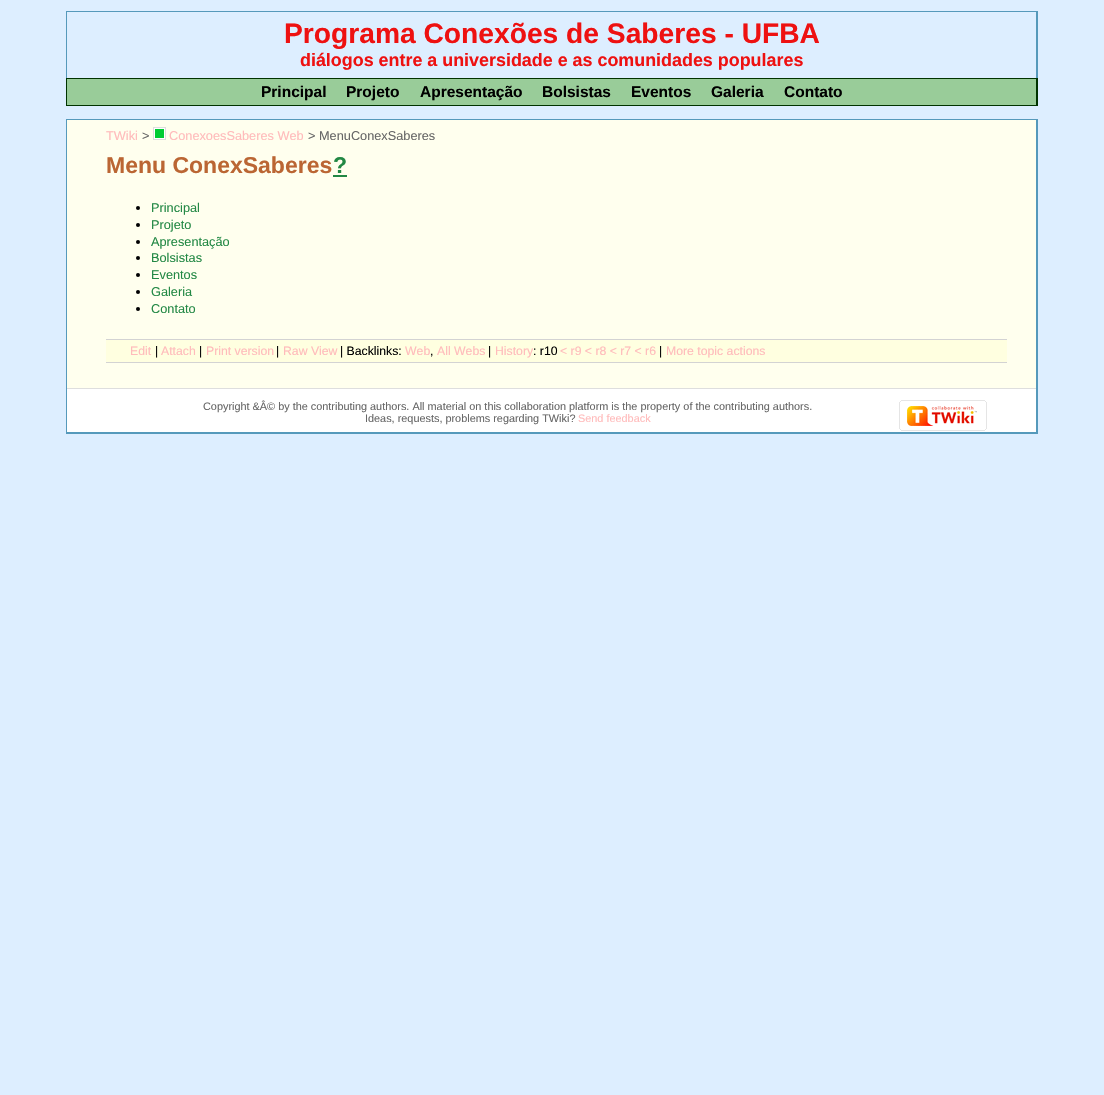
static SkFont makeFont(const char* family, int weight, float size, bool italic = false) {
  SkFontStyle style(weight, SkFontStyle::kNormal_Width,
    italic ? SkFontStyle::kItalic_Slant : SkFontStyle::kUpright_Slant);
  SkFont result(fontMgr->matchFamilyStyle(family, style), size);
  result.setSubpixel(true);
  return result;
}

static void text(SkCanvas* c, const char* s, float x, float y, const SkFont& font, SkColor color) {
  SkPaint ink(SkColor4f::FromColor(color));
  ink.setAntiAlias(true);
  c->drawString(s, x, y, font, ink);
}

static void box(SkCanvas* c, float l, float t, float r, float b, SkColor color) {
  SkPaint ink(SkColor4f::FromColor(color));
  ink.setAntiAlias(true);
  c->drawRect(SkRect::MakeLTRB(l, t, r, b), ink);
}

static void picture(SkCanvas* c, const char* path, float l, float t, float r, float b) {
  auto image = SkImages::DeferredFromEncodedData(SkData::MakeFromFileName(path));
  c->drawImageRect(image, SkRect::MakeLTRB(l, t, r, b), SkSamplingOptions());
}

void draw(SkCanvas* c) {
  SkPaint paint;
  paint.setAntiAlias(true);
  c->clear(0xffddeeff);
  box(c, 66, 11, 1038, 12, 0xff5599bb);
  box(c, 1036, 11, 1038, 78, 0xff5599bb);
  box(c, 66, 11, 67, 78, 0xff5599bb);
  SkFont face1 = makeFont("Liberation Sans", 700, 28.2f);
  text(c, "Programa Conexões de Saberes - UFBA", 284, 43, face1, 0xffee1111);
  SkFont face2 = makeFont("Liberation Sans", 700, 17.9f);
  text(c, "diálogos entre a universidade e as comunidades populares", 300, 66, face2, 0xffee1111);
  box(c, 67, 79, 1036, 105, 0xff99cc99);
  box(c, 66, 78, 1038, 79, 0xff003300);
  box(c, 1036, 78, 1038, 106, 0xff003300);
  box(c, 66, 105, 1038, 106, 0xff003300);
  box(c, 66, 78, 67, 106, 0xff003300);
  SkFont face3 = makeFont("Liberation Sans", 700, 15.5f);
  text(c, "Principal", 261, 97, face3, 0xff000000);
  text(c, "Projeto", 346, 97, face3, 0xff000000);
  text(c, "Apresentação", 420, 97, face3, 0xff000000);
  text(c, "Bolsistas", 542, 97, face3, 0xff000000);
  text(c, "Eventos", 631, 97, face3, 0xff000000);
  text(c, "Galeria", 711, 97, face3, 0xff000000);
  text(c, "Contato", 784, 97, face3, 0xff000000);
  box(c, 67, 120, 1036, 388, 0xffffffee);
  box(c, 66, 119, 1038, 120, 0xff5599bb);
  box(c, 1036, 119, 1038, 434, 0xff5599bb);
  box(c, 66, 432, 1038, 434, 0xff5599bb);
  box(c, 66, 119, 67, 434, 0xff5599bb);
  box(c, 67, 388, 1036, 389, 0xffdedede);
  SkFont face4 = makeFont("Liberation Sans", 400, 12.75f);
  text(c, "TWiki", 106, 140, face4, 0xffffbbbb);
  text(c, ">", 142, 140, face4, 0xff666666);
  box(c, 155, 129, 164, 138, 0xff00cc33);
  picture(c, "img_01.png", 153, 127, 166, 140);
  text(c, "ConexoesSaberes Web", 169, 140, face4, 0xffffbbbb);
  text(c, "> MenuConexSaberes", 308, 140, face4, 0xff666666);
  SkFont face5 = makeFont("Liberation Sans", 700, 23);
  text(c, "Menu ConexSaberes", 106, 173, face5, 0xffbb6633);
  text(c, "?", 333, 173, face5, 0xff228844);
  box(c, 333, 175, 347, 177, 0xff228844);
  paint.setColor(0xff000000);
  c->drawCircle(138, 208, 2, paint);
  text(c, "Principal", 151, 212, face4, 0xff228844);
  c->drawCircle(138, 225, 2, paint);
  text(c, "Projeto", 151, 229, face4, 0xff228844);
  c->drawCircle(138, 242, 2, paint);
  text(c, "Apresentação", 151, 246, face4, 0xff228844);
  c->drawCircle(138, 258, 2, paint);
  text(c, "Bolsistas", 151, 262, face4, 0xff228844);
  c->drawCircle(138, 275, 2, paint);
  text(c, "Eventos", 151, 279, face4, 0xff228844);
  c->drawCircle(138, 292, 2, paint);
  text(c, "Galeria", 151, 296, face4, 0xff228844);
  c->drawCircle(138, 309, 2, paint);
  text(c, "Contato", 151, 313, face4, 0xff228844);
  box(c, 106, 340, 1007, 362, 0xffffffe0);
  box(c, 106, 339, 1007, 340, 0xffd3d3d3);
  box(c, 106, 362, 1007, 363, 0xffd3d3d3);
  SkFont face6 = makeFont("Liberation Sans", 400, 12.25f);
  text(c, "Edit", 130, 355, face6, 0xffffbbbb);
  text(c, "|", 155, 355, face6, 0xff000000);
  text(c, "Attach", 161, 355, face6, 0xffffbbbb);
  text(c, "|", 199, 355, face6, 0xff000000);
  text(c, "Print version", 206, 355, face6, 0xffffbbbb);
  text(c, "|", 276, 355, face6, 0xff000000);
  text(c, "Raw View", 283, 355, face6, 0xffffbbbb);
  text(c, "| Backlinks:", 340, 355, face6, 0xff000000);
  text(c, "Web", 405, 355, face6, 0xffffbbbb);
  text(c, ",", 430, 355, face6, 0xff000000);
  text(c, "All Webs", 437, 355, face6, 0xffffbbbb);
  text(c, "|", 488, 355, face6, 0xff000000);
  text(c, "History", 495, 355, face6, 0xffffbbbb);
  text(c, ": r10", 533, 355, face6, 0xff000000);
  text(c, "< r9 < r8 < r7 < r6", 560, 355, face6, 0xffffbbbb);
  text(c, "|", 659, 355, face6, 0xff000000);
  text(c, "More topic actions", 666, 355, face6, 0xffffbbbb);
  box(c, 67, 389, 1036, 432, 0xffffffff);
  SkFont face7 = makeFont("Liberation Sans", 400, 10.88f);
  text(c, "Copyright &Â© by the contributing authors. All material on this collaboration platform is the property of the contributing authors.", 203, 410, face7, 0xff666666);
  picture(c, "img_02.png", 899, 400, 987, 431);
  text(c, "Ideas, requests, problems regarding TWiki?", 365, 422, face7, 0xff666666);
  text(c, "Send feedback", 578, 422, face7, 0xffffbbbb);
}
